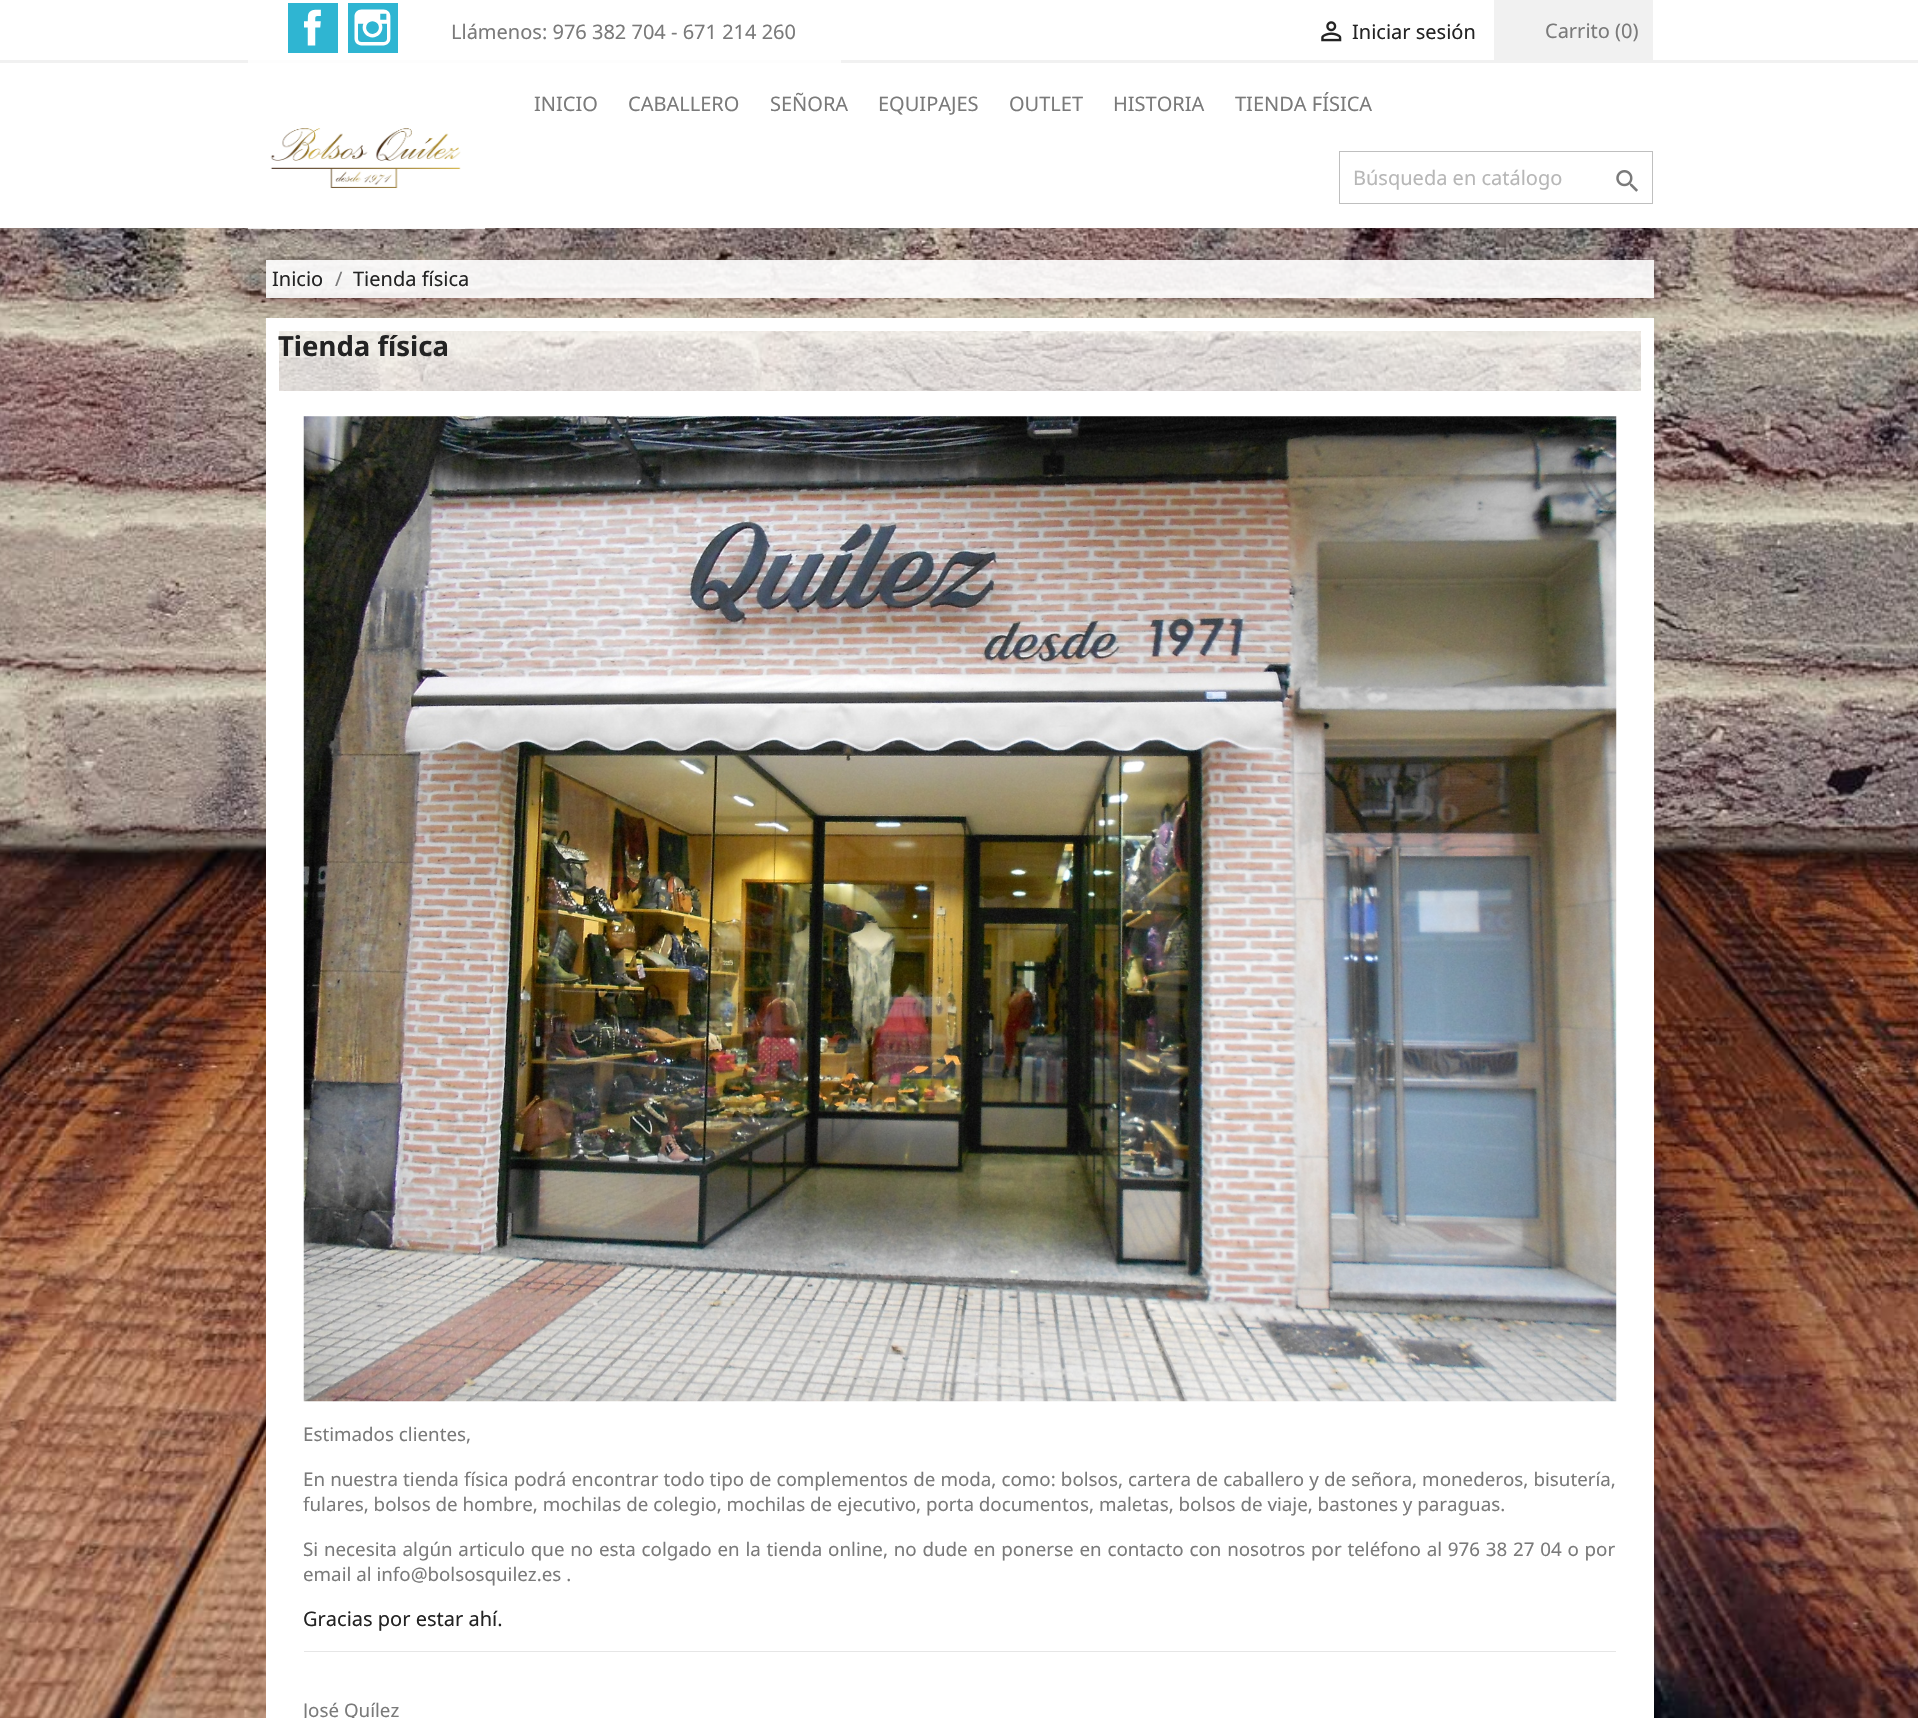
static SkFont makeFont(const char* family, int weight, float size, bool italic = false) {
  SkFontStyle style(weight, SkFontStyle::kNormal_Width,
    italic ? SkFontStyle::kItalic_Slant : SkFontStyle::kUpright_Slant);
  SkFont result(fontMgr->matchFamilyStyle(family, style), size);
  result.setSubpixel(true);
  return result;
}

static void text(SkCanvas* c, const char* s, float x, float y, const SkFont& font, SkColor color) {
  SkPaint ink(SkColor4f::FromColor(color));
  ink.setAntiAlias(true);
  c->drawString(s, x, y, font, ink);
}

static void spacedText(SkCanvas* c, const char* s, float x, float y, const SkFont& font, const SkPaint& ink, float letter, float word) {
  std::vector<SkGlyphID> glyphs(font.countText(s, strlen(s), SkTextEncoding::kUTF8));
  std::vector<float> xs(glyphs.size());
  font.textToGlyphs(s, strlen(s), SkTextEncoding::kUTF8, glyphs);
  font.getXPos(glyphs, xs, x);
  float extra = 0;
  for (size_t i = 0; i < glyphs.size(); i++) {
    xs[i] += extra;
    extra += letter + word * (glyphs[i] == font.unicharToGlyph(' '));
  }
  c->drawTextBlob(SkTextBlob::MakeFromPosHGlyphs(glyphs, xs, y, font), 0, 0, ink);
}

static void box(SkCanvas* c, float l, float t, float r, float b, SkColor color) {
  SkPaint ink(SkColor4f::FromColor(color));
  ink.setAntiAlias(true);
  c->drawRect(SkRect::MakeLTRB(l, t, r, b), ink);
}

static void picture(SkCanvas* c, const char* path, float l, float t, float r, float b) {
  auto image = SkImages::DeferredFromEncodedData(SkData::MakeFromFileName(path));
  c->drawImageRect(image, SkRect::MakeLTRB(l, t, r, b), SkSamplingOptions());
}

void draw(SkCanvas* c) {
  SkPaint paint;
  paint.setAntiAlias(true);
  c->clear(0xffffffff);
  box(c, 0, 60, 1918, 63, 0xfff1f1f1);
  box(c, 248, 60, 841, 63, 0xfffdfdfd);
  box(c, 288, 3, 338, 53, 0xff2fb5d2);
  picture(c, "img_01.png", 304, 9, 321, 46);
  box(c, 348, 3, 398, 53, 0xff2fb5d2);
  picture(c, "img_02.png", 354, 9, 391, 46);
  SkFont face1 = makeFont("Noto Sans", 400, 20);
  text(c, "Llámenos: 976 382 704 - 671 214 260", 451, 39, face1, 0xff7a7a7a);
  picture(c, "img_03.png", 1321, 21, 1342, 42);
  text(c, "Iniciar sesión", 1352, 39, face1, 0xff232323);
  box(c, 1494, 0, 1653, 60, 0xfff1f1f1);
  text(c, "Carrito (0)", 1545, 38, face1, 0xff7a7a7a);
  picture(c, "img_06.png", 0, 228, 1918, 1718);
  box(c, 248, 228, 485, 229, 0xd4ffffff);
  picture(c, "img_04.png", 266, 128, 465, 229);
  text(c, "INICIO", 534, 111, face1, 0xff7a7a7a);
  text(c, "CABALLERO", 628, 111, face1, 0xff7a7a7a);
  text(c, "SEÑORA", 770, 111, face1, 0xff7a7a7a);
  text(c, "EQUIPAJES", 878, 111, face1, 0xff7a7a7a);
  text(c, "OUTLET", 1009, 111, face1, 0xff7a7a7a);
  text(c, "HISTORIA", 1113, 111, face1, 0xff7a7a7a);
  text(c, "TIENDA FÍSICA", 1235, 111, face1, 0xff7a7a7a);
  paint.setStyle(SkPaint::kStroke_Style);
  paint.setStrokeWidth(1);
  paint.setColor(0xffbfbfbf);
  c->drawRect(SkRect::MakeLTRB(1339.5f, 151.5f, 1652.5f, 203.5f), paint);
  text(c, "Búsqueda en catálogo", 1353, 185, face1, 0xffb7b7b7);
  picture(c, "img_05.png", 1616, 170, 1638, 192);
  box(c, 266, 260, 1654, 298, 0xe8ffffff);
  text(c, "Inicio", 272, 286, face1, 0xff232323);
  text(c, "/", 335, 286, face1, 0xff7a7a7a);
  text(c, "Tienda física", 353, 286, face1, 0xff232323);
  box(c, 279, 331, 1641, 391, 0xa8ffffff);
  paint.setStrokeWidth(13);
  paint.setColor(0xffffffff);
  c->drawRect(SkRect::MakeLTRB(272.5f, 324.5f, 1647.5f, 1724.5f), paint);
  SkFont face2 = makeFont("Noto Sans", 700, 27.5f);
  text(c, "Tienda física", 278, 356, face2, 0xff232323);
  box(c, 279, 391, 1641, 1718, 0xffffffff);
  picture(c, "img_07.png", 303, 416, 1617, 1402);
  SkFont face3 = makeFont("Noto Sans", 400, 18.75f);
  text(c, "Estimados clientes,", 303, 1441, face3, 0xff7a7a7a);
  paint.setStyle(SkPaint::kFill_Style);
  paint.setColor(0xff7a7a7a);
  spacedText(c, "En nuestra tienda física podrá encontrar todo tipo de complementos de moda, como: bolsos, cartera de caballero y de señora, monederos, bisutería,", 303, 1486, face3, paint, 0, 0.25f);
  text(c, "fulares, bolsos de hombre, mochilas de colegio, mochilas de ejecutivo, porta documentos, maletas, bolsos de viaje, bastones y paraguas.", 303, 1511, face3, 0xff7a7a7a);
  spacedText(c, "Si necesita algún articulo que no esta colgado en la tienda online, no dude en ponerse en contacto con nosotros por teléfono al 976 38 27 04 o por", 303, 1556, face3, paint, 0, 0.9f);
  text(c, "email al info@bolsosquilez.es .", 303, 1581, face3, 0xff7a7a7a);
  text(c, "Gracias por estar ahí.", 303, 1626, face1, 0xff232323);
  box(c, 304, 1651, 1616, 1652, 0xffe6e6e6);
  text(c, "José Quílez", 303, 1717, face3, 0xff7a7a7a);
}
